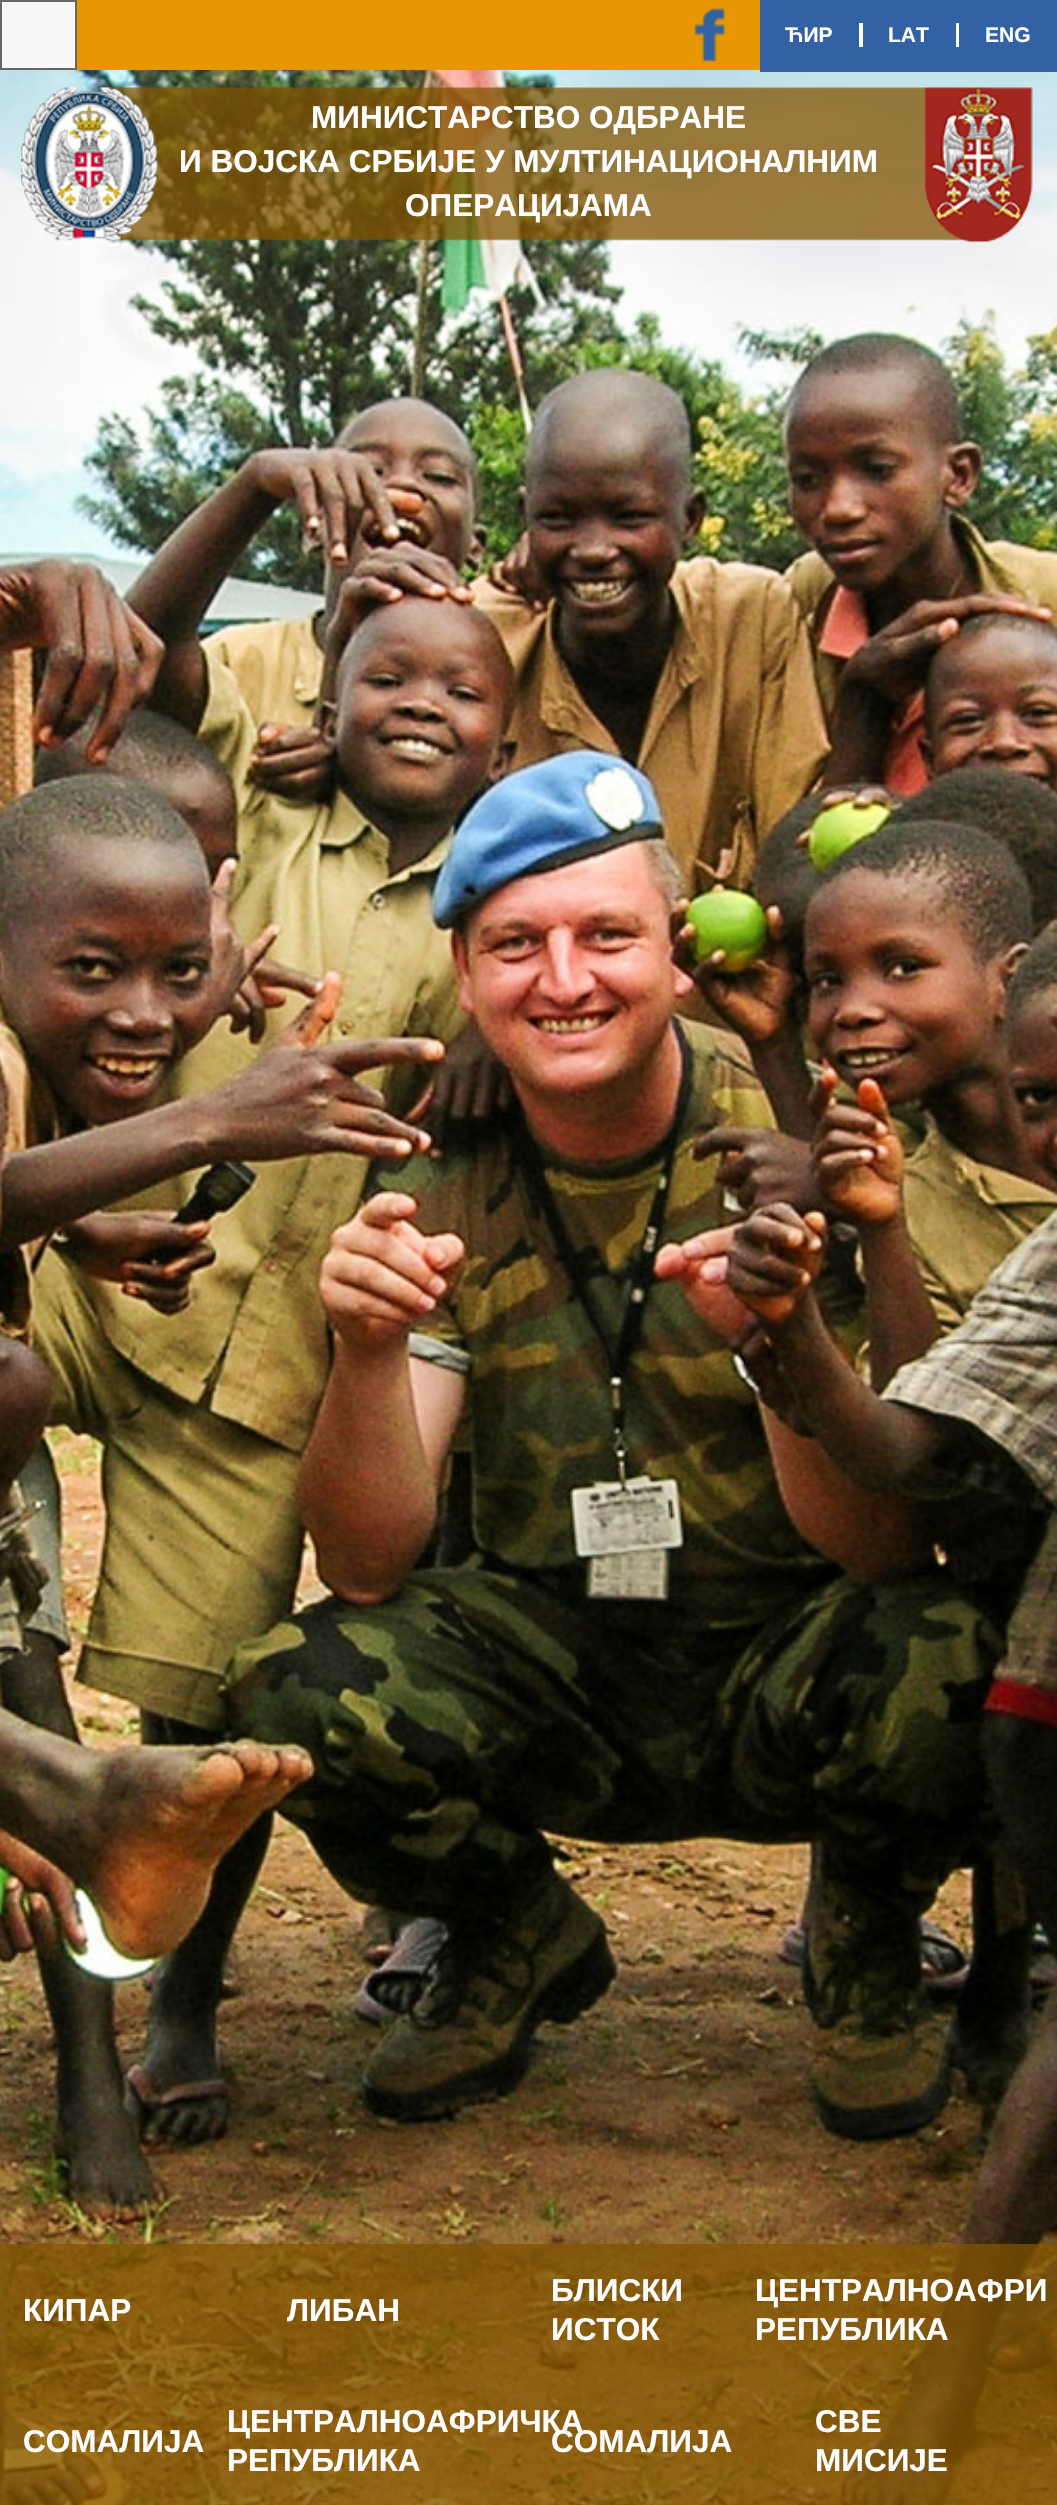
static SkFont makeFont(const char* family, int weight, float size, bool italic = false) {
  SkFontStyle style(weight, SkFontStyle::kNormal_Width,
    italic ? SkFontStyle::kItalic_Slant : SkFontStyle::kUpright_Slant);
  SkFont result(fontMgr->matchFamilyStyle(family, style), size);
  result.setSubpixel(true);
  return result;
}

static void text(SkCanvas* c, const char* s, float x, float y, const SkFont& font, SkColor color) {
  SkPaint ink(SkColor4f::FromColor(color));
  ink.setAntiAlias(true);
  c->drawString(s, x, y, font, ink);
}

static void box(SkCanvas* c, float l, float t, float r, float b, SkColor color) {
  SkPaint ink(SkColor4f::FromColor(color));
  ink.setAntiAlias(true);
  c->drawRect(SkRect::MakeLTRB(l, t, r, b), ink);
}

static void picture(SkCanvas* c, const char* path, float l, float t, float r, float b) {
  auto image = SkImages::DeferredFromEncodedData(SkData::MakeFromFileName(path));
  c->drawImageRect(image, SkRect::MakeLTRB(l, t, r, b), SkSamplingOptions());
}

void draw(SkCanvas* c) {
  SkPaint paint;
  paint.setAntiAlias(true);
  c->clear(0xffffffff);
  picture(c, "img_01.png", 0, 70, 1057, 2505);
  box(c, 77, 0, 760, 70, 0xffe69600);
  paint.setColor(0xfff8f8f8);
  c->drawRect(SkRect::MakeLTRB(1, 1, 76, 69), paint);
  paint.setStyle(SkPaint::kStroke_Style);
  paint.setStrokeWidth(2);
  paint.setColor(0xff666666);
  c->drawRect(SkRect::MakeLTRB(1, 1, 76, 69), paint);
  picture(c, "img_02.png", 694, 8, 725, 62);
  box(c, 760, 0, 1057, 72, 0xff3262a4);
  SkFont face1 = makeFont("Liberation Sans", 700, 21);
  text(c, "ЋИР", 785, 42, face1, 0xffffffff);
  text(c, "LAT", 888, 42, face1, 0xffffffff);
  box(c, 956, 23, 959, 47, 0xffffffff);
  box(c, 859, 23, 863, 47, 0xffffffff);
  text(c, "ENG", 985, 42, face1, 0xffffffff);
  picture(c, "img_03.png", 21, 87, 1033, 242);
  SkFont face2 = makeFont("Liberation Sans", 700, 31.5f);
  text(c, "МИНИСТАРСТВО ОДБРАНЕ", 311, 128, face2, 0xffffffff);
  text(c, "И ВОЈСКА СРБИЈЕ У МУЛТИНАЦИОНАЛНИМ", 179, 172, face2, 0xffffffff);
  text(c, "ОПЕРАЦИЈАМА", 405, 216, face2, 0xffffffff);
  box(c, 0, 2244, 1057, 2505, 0xbf805300);
  text(c, "КИПАР", 23, 2321, face2, 0xffffffff);
  text(c, "ЛИБАН", 287, 2321, face2, 0xffffffff);
  text(c, "БЛИСКИ", 551, 2301, face2, 0xffffffff);
  text(c, "ИСТОК", 551, 2340, face2, 0xffffffff);
  text(c, "ЦЕНТРАЛНОАФРИ", 755, 2301, face2, 0xffffffff);
  text(c, "РЕПУБЛИКА", 755, 2340, face2, 0xffffffff);
  text(c, "СОМАЛИЈА", 23, 2452, face2, 0xffffffff);
  text(c, "ЦЕНТРАЛНОАФРИЧКА", 227, 2432, face2, 0xffffffff);
  text(c, "РЕПУБЛИКА", 227, 2471, face2, 0xffffffff);
  text(c, "СОМАЛИЈА", 551, 2452, face2, 0xffffffff);
  text(c, "СВЕ", 815, 2432, face2, 0xffffffff);
  text(c, "МИСИЈЕ", 815, 2471, face2, 0xffffffff);
}
